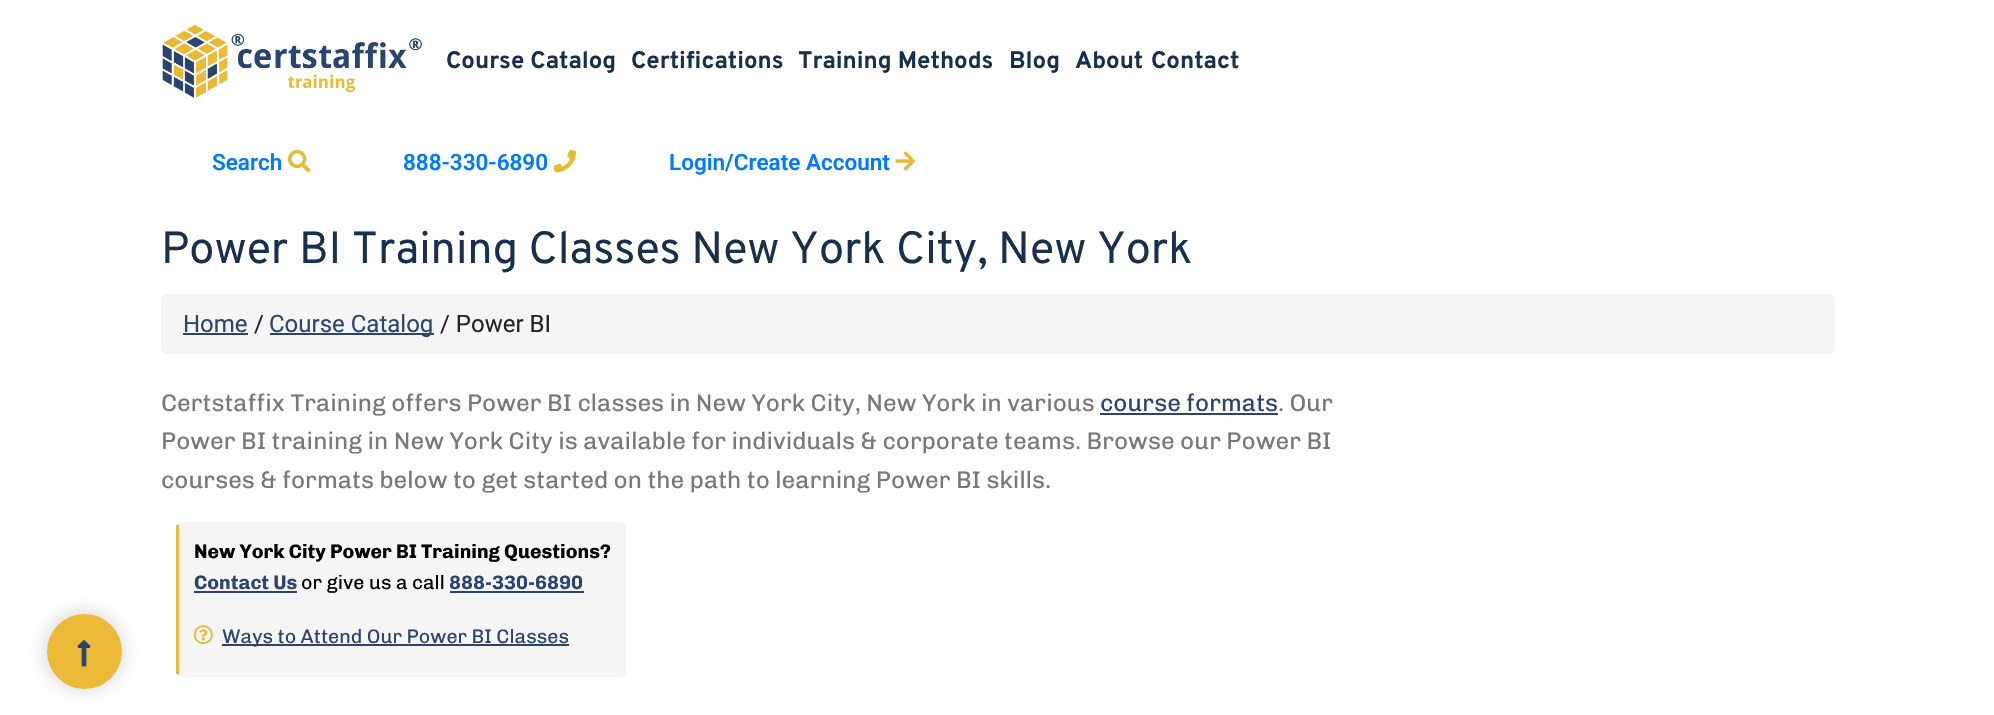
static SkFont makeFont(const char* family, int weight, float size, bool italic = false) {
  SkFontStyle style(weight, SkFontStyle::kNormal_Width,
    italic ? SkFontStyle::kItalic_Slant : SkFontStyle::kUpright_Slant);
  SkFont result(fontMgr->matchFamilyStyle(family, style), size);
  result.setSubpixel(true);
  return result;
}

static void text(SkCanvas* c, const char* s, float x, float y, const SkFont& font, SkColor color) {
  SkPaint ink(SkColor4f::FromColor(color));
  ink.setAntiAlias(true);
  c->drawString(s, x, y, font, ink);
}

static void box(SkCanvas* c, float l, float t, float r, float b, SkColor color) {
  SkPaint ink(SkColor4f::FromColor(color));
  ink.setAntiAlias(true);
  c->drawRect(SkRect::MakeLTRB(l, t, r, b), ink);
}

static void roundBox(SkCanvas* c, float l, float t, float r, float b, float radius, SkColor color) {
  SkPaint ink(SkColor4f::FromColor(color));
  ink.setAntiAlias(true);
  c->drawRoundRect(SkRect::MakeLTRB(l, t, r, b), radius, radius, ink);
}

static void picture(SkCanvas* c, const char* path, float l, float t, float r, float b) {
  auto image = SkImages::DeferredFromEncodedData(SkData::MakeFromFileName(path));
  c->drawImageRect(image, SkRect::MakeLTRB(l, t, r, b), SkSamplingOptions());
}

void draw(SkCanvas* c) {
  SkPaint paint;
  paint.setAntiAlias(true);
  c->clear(0xffffffff);
  picture(c, "img_01.png", 162, 25, 422, 98);
  SkFont face1 = makeFont("Overpass", 700, 24);
  text(c, "Course Catalog", 446, 68, face1, 0xff18304b);
  text(c, "Certifications", 631, 68, face1, 0xff18304b);
  text(c, "Training Methods", 798, 68, face1, 0xff18304b);
  text(c, "Blog", 1009, 68, face1, 0xff18304b);
  text(c, "About", 1075, 68, face1, 0xff18304b);
  text(c, "Contact", 1151, 68, face1, 0xff18304b);
  SkFont face2 = makeFont("Roboto", 600, 22.5f);
  text(c, "Search", 212, 170, face2, 0xff007aff);
  picture(c, "img_02.png", 288, 149, 311, 173);
  text(c, "888-330-6890", 403, 170, face2, 0xff007aff);
  picture(c, "img_03.png", 553, 149, 576, 173);
  text(c, "Login/Create Account", 669, 170, face2, 0xff007aff);
  picture(c, "img_04.png", 895, 151, 916, 171);
  paint.setColor(0x336c6262);
  paint.setMaskFilter(SkMaskFilter::MakeBlur(kNormal_SkBlurStyle, 7.5f));
  c->drawRoundRect(SkRect::MakeLTRB(42, 609, 126, 693), 42, 42, paint);
  paint.setMaskFilter(nullptr);
  paint.setColor(0xffeaba38);
  c->drawCircle(84.5f, 651.5f, 37.5f, paint);
  picture(c, "img_05.png", 77, 640, 91, 667);
  SkFont face3 = makeFont("Overpass", 400, 45);
  text(c, "Power BI Training Classes New York City, New York", 161, 263, face3, 0xff18304b);
  roundBox(c, 161, 294, 1835, 354, 6, 0xfff5f5f5);
  SkFont face4 = makeFont("Roboto", 400, 24);
  text(c, "Home", 183, 332, face4, 0xff2b436d);
  box(c, 183, 333, 248, 335, 0xff2b436d);
  text(c, "/", 254, 332, face4, 0xff232323);
  box(c, 270, 333, 434, 335, 0xff2b436d);
  text(c, "Course Catalog", 269, 332, face4, 0xff2b436d);
  text(c, "/ Power BI", 440, 332, face4, 0xff232323);
  SkFont face5 = makeFont("Chivo", 400, 24);
  text(c, "Certstaffix Training offers Power BI classes in New York City, New York in various", 161, 411, face5, 0xff76787a);
  text(c, "course formats", 1100, 411, face5, 0xff2b436d);
  box(c, 1100, 413, 1278, 415, 0xff2b436d);
  text(c, ". Our", 1278, 411, face5, 0xff76787a);
  text(c, "Power BI training in New York City is available for individuals & corporate teams. Browse our Power BI", 161, 449, face5, 0xff76787a);
  text(c, "courses & formats below to get started on the path to learning Power BI skills.", 161, 488, face5, 0xff76787a);
  roundBox(c, 176, 522, 626, 677, 6, 0xfff5f5f5);
  box(c, 176, 525, 179, 674, 0xffeab934);
  SkFont face6 = makeFont("Chivo", 700, 19.5f);
  text(c, "New York City Power BI Training Questions?", 194, 558, face6, 0xff000000);
  text(c, "Contact Us", 194, 589, face6, 0xff2b436d);
  box(c, 194, 591, 297, 593, 0xff2b436d);
  SkFont face7 = makeFont("Chivo", 400, 19.5f);
  text(c, "or give us a call", 301, 589, face7, 0xff000000);
  text(c, "888-330-6890", 449, 589, face6, 0xff2b436d);
  box(c, 450, 591, 584, 593, 0xff2b436d);
  picture(c, "img_06.png", 193, 625, 213, 645);
  box(c, 222, 644, 569, 646, 0xff2b436d);
  text(c, "Ways to Attend Our Power BI Classes", 222, 643, face7, 0xff2b436d);
}
